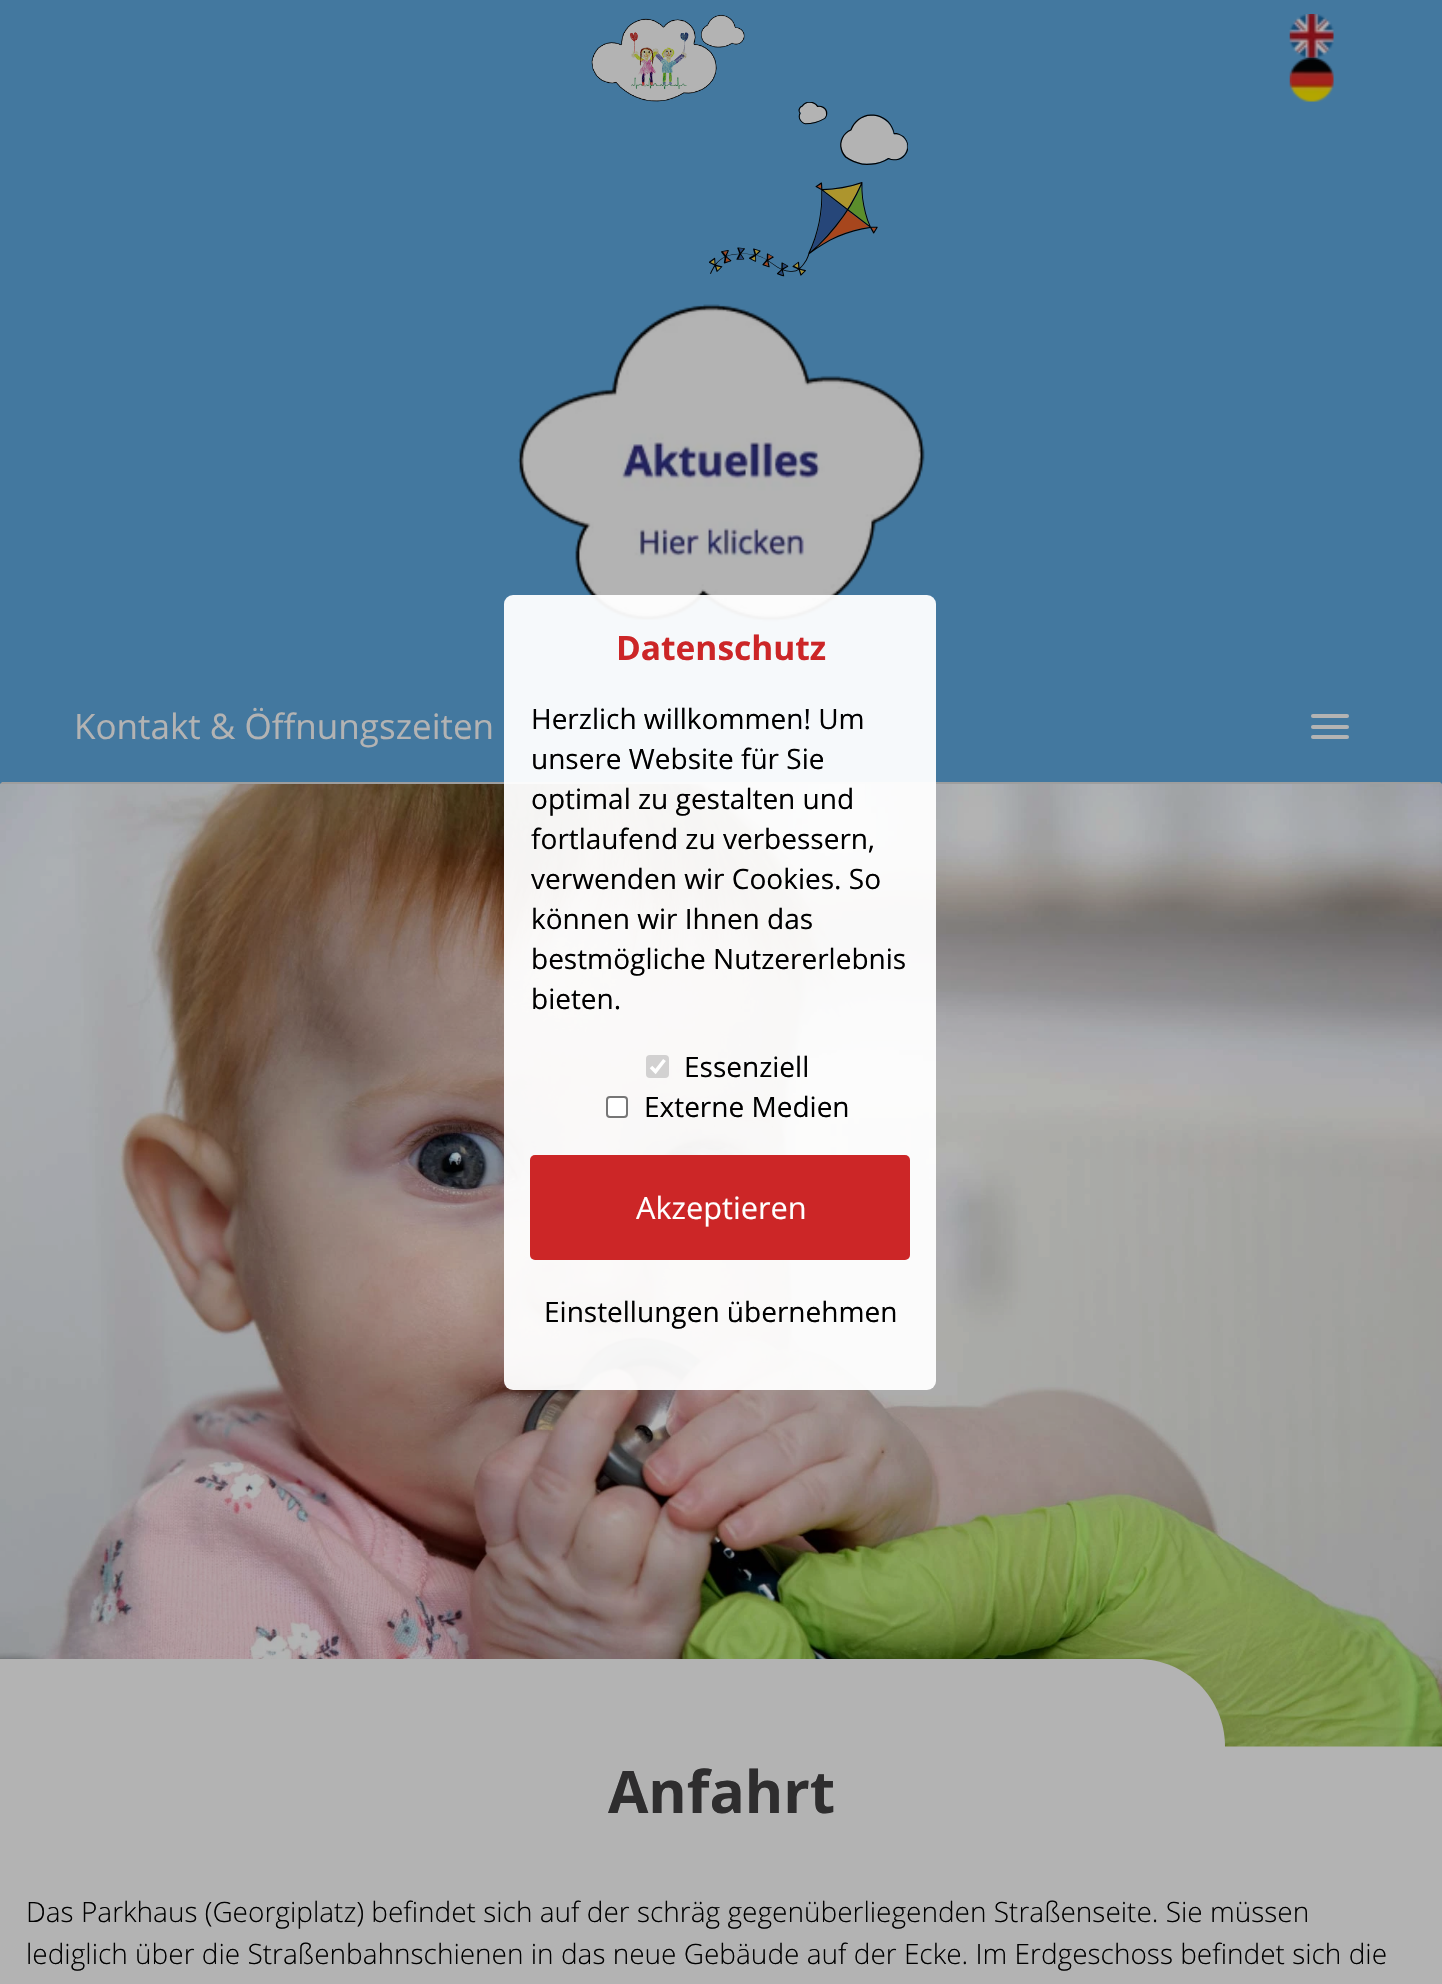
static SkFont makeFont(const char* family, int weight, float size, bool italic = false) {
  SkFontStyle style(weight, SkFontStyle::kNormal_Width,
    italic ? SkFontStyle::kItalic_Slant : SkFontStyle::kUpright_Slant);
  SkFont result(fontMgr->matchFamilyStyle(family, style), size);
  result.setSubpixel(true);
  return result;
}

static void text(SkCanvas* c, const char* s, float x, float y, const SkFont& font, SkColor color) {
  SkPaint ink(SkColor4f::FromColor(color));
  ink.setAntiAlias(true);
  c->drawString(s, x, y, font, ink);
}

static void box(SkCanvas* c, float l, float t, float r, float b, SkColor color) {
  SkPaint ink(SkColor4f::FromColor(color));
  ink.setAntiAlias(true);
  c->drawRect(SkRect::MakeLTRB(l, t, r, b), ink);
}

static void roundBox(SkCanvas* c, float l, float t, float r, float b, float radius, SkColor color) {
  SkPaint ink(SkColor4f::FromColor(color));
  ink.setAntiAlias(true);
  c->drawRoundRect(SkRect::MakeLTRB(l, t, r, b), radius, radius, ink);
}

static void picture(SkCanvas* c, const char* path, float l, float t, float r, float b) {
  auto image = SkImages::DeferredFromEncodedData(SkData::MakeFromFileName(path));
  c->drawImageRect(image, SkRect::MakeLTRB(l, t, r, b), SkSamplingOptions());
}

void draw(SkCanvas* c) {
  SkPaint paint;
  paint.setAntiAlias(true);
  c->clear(0xffb3b3b3);
  box(c, 0, 0, 1442, 784, 0xff43789f);
  paint.setColor(0xff9e9e9e);
  c->drawPath(SkPathBuilder().moveTo(1442, 784).lineTo(0, 784).lineTo(2, 782).lineTo(1440, 782).close().detach(), paint);
  picture(c, "img_05.png", 517, 304, 925, 622);
  picture(c, "img_06.png", 0, 784, 1442, 1747);
  roundBox(c, 504, 595, 936, 1390, 9, 0xf2ffffff);
  SkFont face1 = makeFont("Open Sans", 700, 33.5f);
  text(c, "Datenschutz", 616, 660, face1, 0xffcc2627);
  SkFont face2 = makeFont("Open Sans", 400, 28);
  text(c, "Herzlich willkommen! Um", 531, 729, face2, 0xff000000);
  text(c, "unsere Website für Sie", 531, 769, face2, 0xff000000);
  text(c, "optimal zu gestalten und", 531, 809, face2, 0xff000000);
  text(c, "fortlaufend zu verbessern,", 531, 849, face2, 0xff000000);
  text(c, "verwenden wir Cookies. So", 531, 889, face2, 0xff000000);
  text(c, "können wir Ihnen das", 531, 929, face2, 0xff000000);
  text(c, "bestmögliche Nutzererlebnis", 531, 969, face2, 0xff000000);
  text(c, "bieten.", 531, 1009, face2, 0xff000000);
  roundBox(c, 646, 1055, 669, 1078, 4, 0xffd2d1d1);
  paint.setStyle(SkPaint::kStroke_Style);
  paint.setStrokeWidth(3.6f);
  paint.setColor(0xffffffff);
  c->drawPath(SkPathBuilder().moveTo(651, 1067).lineTo(655.5f, 1071.5f).lineTo(664.5f, 1060).detach(), paint);
  text(c, "Essenziell", 684, 1077, face2, 0xff000000);
  paint.setStyle(SkPaint::kFill_Style);
  c->drawRoundRect(SkRect::MakeLTRB(607, 1097, 627, 1117), 3, 3, paint);
  paint.setStyle(SkPaint::kStroke_Style);
  paint.setStrokeWidth(2);
  paint.setColor(0xff767676);
  c->drawRoundRect(SkRect::MakeLTRB(607, 1097, 627, 1117), 3, 3, paint);
  text(c, "Externe Medien", 644, 1117, face2, 0xff000000);
  roundBox(c, 530, 1155, 910, 1260, 5, 0xffcc2627);
  SkFont face3 = makeFont("Open Sans", 400, 30.75f);
  text(c, "Akzeptieren", 636, 1219, face3, 0xffffffff);
  text(c, "Einstellungen übernehmen", 544, 1322, face2, 0xff000000);
  picture(c, "img_01.png", 591, 14, 745, 102);
  picture(c, "img_02.png", 1289, 14, 1334, 58);
  picture(c, "img_03.png", 1289, 57, 1334, 102);
  picture(c, "img_04.png", 709, 102, 908, 277);
  SkFont face4 = makeFont("Open Sans", 400, 35);
  text(c, "Kontakt & Öffnungszeiten", 74, 739, face4, 0xffb3b3b3);
  roundBox(c, 1311, 714, 1349, 718, 2, 0xffb3b3b3);
  roundBox(c, 1311, 725, 1349, 729, 2, 0xffb3b3b3);
  roundBox(c, 1311, 735, 1349, 739, 2, 0xffb3b3b3);
  box(c, 0, 1659, 217, 1747, 0xffb3b3b3);
  paint.setStyle(SkPaint::kFill_Style);
  paint.setColor(0xffb3b3b3);
  c->drawPath(SkPathBuilder().moveTo(217, 1659).lineTo(1137.5f, 1659).cubicTo(1186, 1659, 1225, 1698, 1225, 1746.5f).lineTo(1225, 1834).lineTo(217, 1834).close().detach(), paint);
  SkFont face5 = makeFont("Open Sans", 700, 58.5f);
  text(c, "Anfahrt", 608, 1813, face5, 0xff2e2d2e);
  SkFont face6 = makeFont("Open Sans", 300, 28);
  text(c, "Das Parkhaus (Georgiplatz) befindet sich auf der schräg gegenüberliegenden Straßenseite. Sie müssen", 26, 1922, face6, 0xff000000);
  text(c, "lediglich über die Straßenbahnschienen in das neue Gebäude auf der Ecke. Im Erdgeschoss befindet sich die", 26, 1964, face6, 0xff000000);
}
